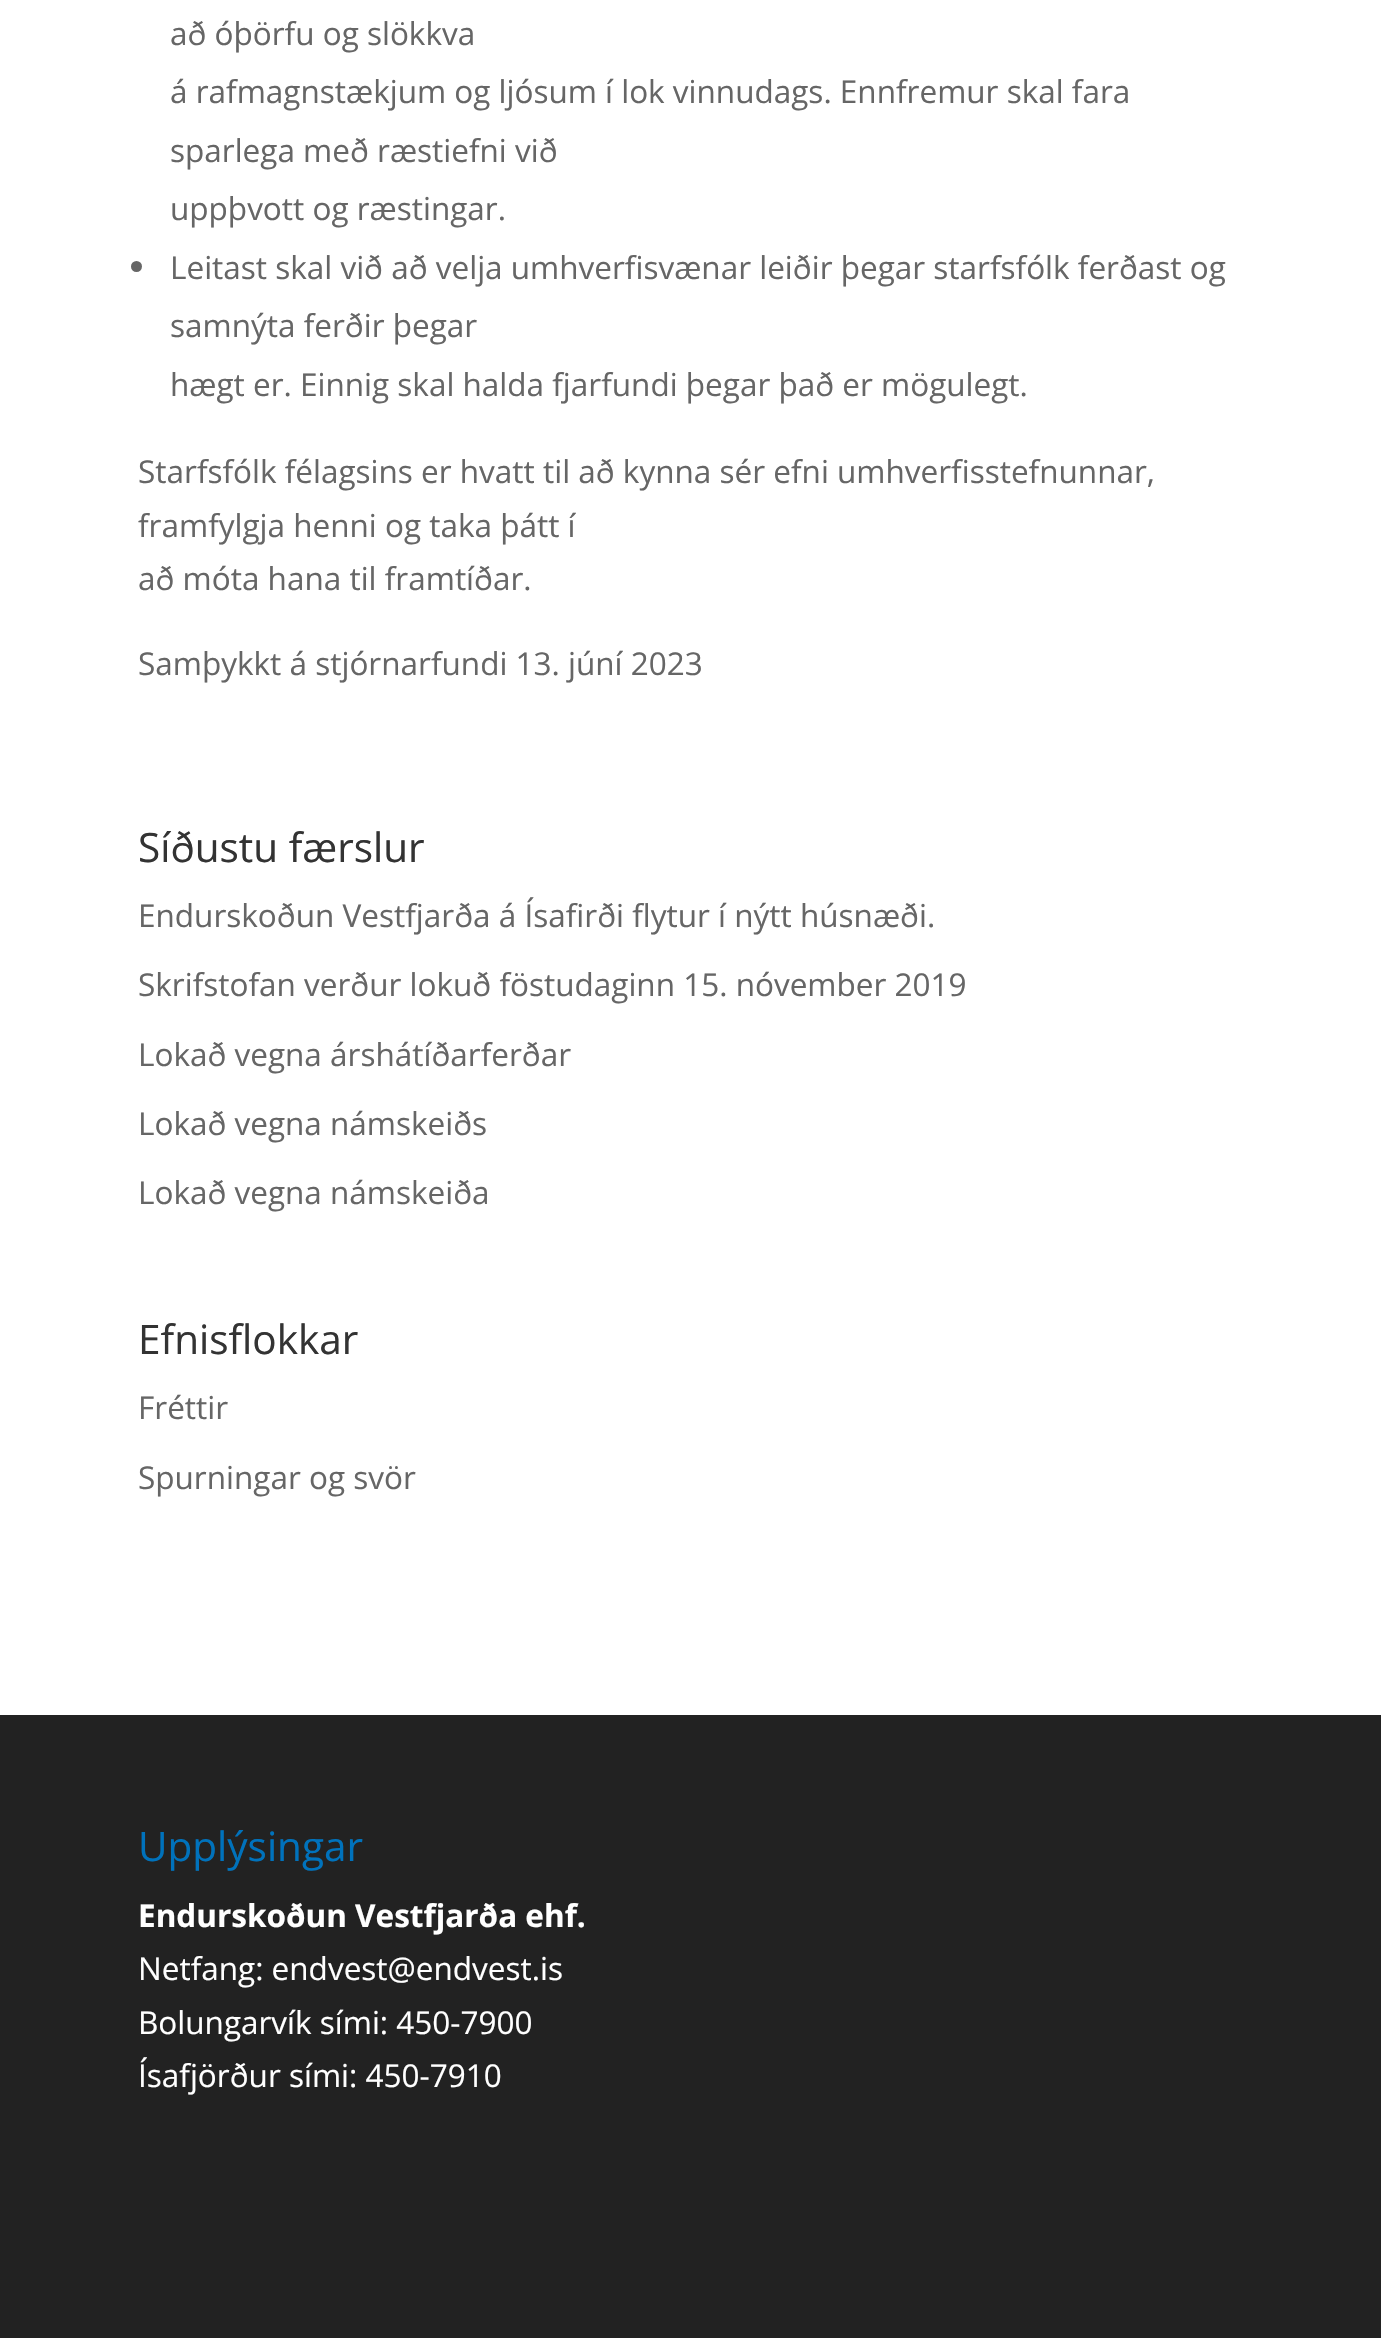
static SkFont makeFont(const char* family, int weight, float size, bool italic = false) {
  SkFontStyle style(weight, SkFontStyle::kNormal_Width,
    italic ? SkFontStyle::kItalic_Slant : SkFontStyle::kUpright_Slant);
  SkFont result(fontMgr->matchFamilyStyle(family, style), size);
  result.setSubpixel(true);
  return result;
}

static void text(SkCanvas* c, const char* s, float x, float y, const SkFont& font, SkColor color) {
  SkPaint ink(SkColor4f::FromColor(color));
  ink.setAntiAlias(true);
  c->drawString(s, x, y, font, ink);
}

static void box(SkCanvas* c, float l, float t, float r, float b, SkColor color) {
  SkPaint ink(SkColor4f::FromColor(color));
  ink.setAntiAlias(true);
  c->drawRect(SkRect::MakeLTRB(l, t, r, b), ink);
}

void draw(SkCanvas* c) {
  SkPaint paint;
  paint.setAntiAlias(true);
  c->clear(0xffffffff);
  SkFont face1 = makeFont("Open Sans", 400, 31.5f);
  text(c, "að óþörfu og slökkva", 170, 45, face1, 0xff666666);
  text(c, "á rafmagnstækjum og ljósum í lok vinnudags. Ennfremur skal fara", 170, 103, face1, 0xff666666);
  text(c, "sparlega með ræstiefni við", 170, 162, face1, 0xff666666);
  text(c, "uppþvott og ræstingar.", 170, 220, face1, 0xff666666);
  paint.setColor(0xff666666);
  c->drawCircle(136.5f, 266.5f, 5.5f, paint);
  text(c, "Leitast skal við að velja umhverfisvænar leiðir þegar starfsfólk ferðast og", 170, 279, face1, 0xff666666);
  text(c, "samnýta ferðir þegar", 170, 337, face1, 0xff666666);
  text(c, "hægt er. Einnig skal halda fjarfundi þegar það er mögulegt.", 170, 396, face1, 0xff666666);
  text(c, "Starfsfólk félagsins er hvatt til að kynna sér efni umhverfisstefnunnar,", 138, 483, face1, 0xff666666);
  text(c, "framfylgja henni og taka þátt í", 138, 537, face1, 0xff666666);
  text(c, "að móta hana til framtíðar.", 138, 590, face1, 0xff666666);
  text(c, "Samþykkt á stjórnarfundi 13. júní 2023", 138, 675, face1, 0xff666666);
  SkFont face2 = makeFont("Open Sans", 400, 40.5f);
  text(c, "Síðustu færslur", 138, 862, face2, 0xff333333);
  text(c, "Endurskoðun Vestfjarða á Ísafirði flytur í nýtt húsnæði.", 138, 927, face1, 0xff666666);
  text(c, "Skrifstofan verður lokuð föstudaginn 15. nóvember 2019", 138, 996, face1, 0xff666666);
  text(c, "Lokað vegna árshátíðarferðar", 138, 1066, face1, 0xff666666);
  text(c, "Lokað vegna námskeiðs", 138, 1135, face1, 0xff666666);
  text(c, "Lokað vegna námskeiða", 138, 1204, face1, 0xff666666);
  text(c, "Efnisflokkar", 138, 1354, face2, 0xff333333);
  text(c, "Fréttir", 138, 1419, face1, 0xff666666);
  text(c, "Spurningar og svör", 138, 1489, face1, 0xff666666);
  box(c, 0, 1715, 1381, 2338, 0xff222222);
  text(c, "Upplýsingar", 138, 1861, face2, 0xff0072bc);
  SkFont face3 = makeFont("Open Sans", 700, 31.5f);
  text(c, "Endurskoðun Vestfjarða ehf.", 138, 1927, face3, 0xffffffff);
  text(c, "Netfang: endvest@endvest.is", 138, 1980, face1, 0xffffffff);
  text(c, "Bolungarvík sími: 450-7900", 138, 2034, face1, 0xffffffff);
  text(c, "Ísafjörður sími: 450-7910", 138, 2087, face1, 0xffffffff);
}
